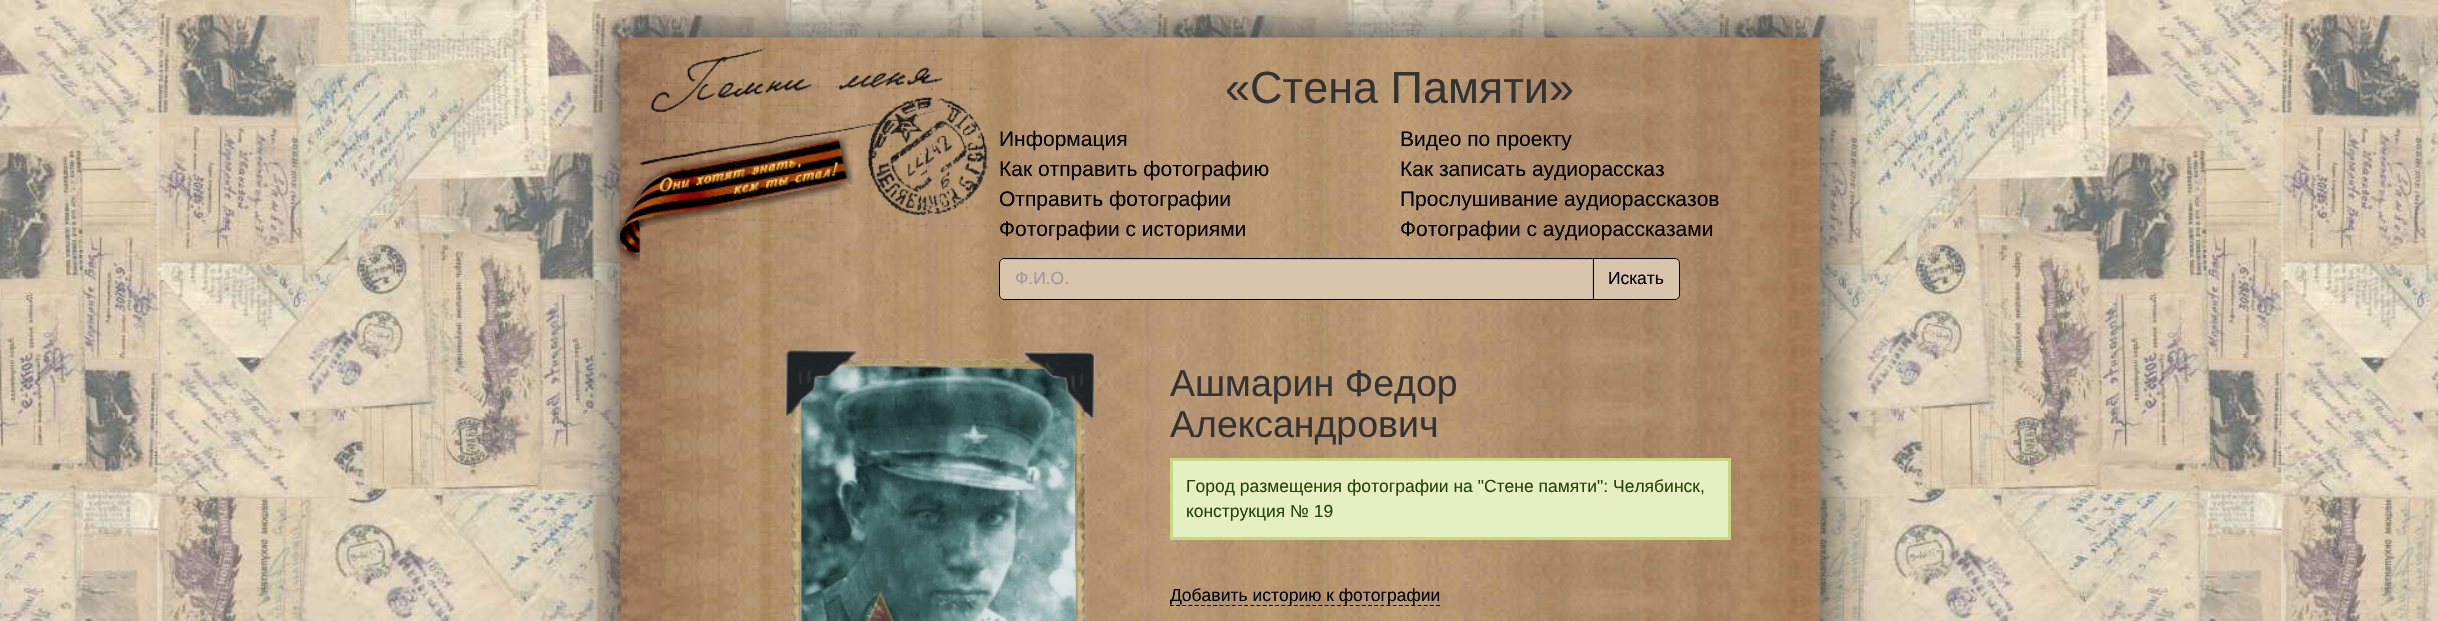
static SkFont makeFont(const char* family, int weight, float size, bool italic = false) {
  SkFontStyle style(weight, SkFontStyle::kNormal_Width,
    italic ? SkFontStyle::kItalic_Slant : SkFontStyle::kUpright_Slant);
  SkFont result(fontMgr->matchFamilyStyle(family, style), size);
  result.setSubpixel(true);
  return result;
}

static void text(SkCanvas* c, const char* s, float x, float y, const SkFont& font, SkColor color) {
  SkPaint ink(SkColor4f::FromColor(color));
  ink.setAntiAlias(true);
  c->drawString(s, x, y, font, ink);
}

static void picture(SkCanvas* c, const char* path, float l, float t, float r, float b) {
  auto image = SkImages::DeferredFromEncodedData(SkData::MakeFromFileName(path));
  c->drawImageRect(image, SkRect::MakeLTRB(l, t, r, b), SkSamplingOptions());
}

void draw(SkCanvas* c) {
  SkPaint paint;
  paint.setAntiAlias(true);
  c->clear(0xffffffff);
  picture(c, "img_01.png", 0, 0, 2438, 621);
  paint.setColor(0xff333333);
  paint.setMaskFilter(SkMaskFilter::MakeBlur(kNormal_SkBlurStyle, 27.5f));
  c->drawRect(SkRect::MakeLTRB(620, 38, 1820, 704), paint);
  paint.setMaskFilter(nullptr);
  picture(c, "img_02.png", 620, 37, 1820, 621);
  picture(c, "img_03.png", 638, 37, 989, 229);
  picture(c, "img_04.png", 614, 134, 854, 262);
  SkFont face1 = makeFont("Liberation Sans", 400, 45);
  text(c, "«Стена Памяти»", 1225, 103, face1, 0xff333333);
  SkFont face2 = makeFont("Liberation Sans", 400, 21);
  text(c, "Информация", 999, 146, face2, 0xff000000);
  text(c, "Видео по проекту", 1400, 146, face2, 0xff000000);
  text(c, "Как отправить фотографию", 999, 176, face2, 0xff000000);
  text(c, "Как записать аудиорассказ", 1400, 176, face2, 0xff000000);
  text(c, "Отправить фотографии", 999, 206, face2, 0xff000000);
  text(c, "Прослушивание аудиорассказов", 1400, 206, face2, 0xff000000);
  text(c, "Фотографии с историями", 999, 236, face2, 0xff000000);
  text(c, "Фотографии с аудиорассказами", 1400, 236, face2, 0xff000000);
  paint.setColor(0xffd9c5ac);
  c->drawPath(SkPathBuilder().moveTo(1004, 258).lineTo(1594, 258).lineTo(1594, 300).lineTo(1004, 300).cubicTo(1001, 300, 999, 298, 999, 295).lineTo(999, 263).cubicTo(999, 260, 1001, 258, 1004, 258).close().detach(), paint);
  paint.setColor(0xffc9b69f);
  c->drawPath(SkPathBuilder().moveTo(1004, 260).lineTo(1592, 260).lineTo(1592, 299).lineTo(1593, 299).lineTo(1593, 259).lineTo(1004, 259).cubicTo(1001, 259, 1000, 261, 1000, 264).cubicTo(1000, 262, 1002, 260, 1004, 260).close().detach(), paint);
  paint.setStyle(SkPaint::kStroke_Style);
  paint.setStrokeWidth(1);
  paint.setColor(0xff000000);
  c->drawPath(SkPathBuilder().moveTo(1004, 258.5f).lineTo(1593.5f, 258.5f).lineTo(1593.5f, 299.5f).lineTo(1004, 299.5f).cubicTo(1001.5f, 299.5f, 999.5f, 297.5f, 999.5f, 295).lineTo(999.5f, 263).cubicTo(999.5f, 260.5f, 1001.5f, 258.5f, 1004, 258.5f).close().detach(), paint);
  SkFont face3 = makeFont("Liberation Sans", 400, 17.5f);
  text(c, "Ф.И.О.", 1015, 284, face3, 0xff999999);
  paint.setStyle(SkPaint::kFill_Style);
  paint.setColor(0xffd9c5ac);
  c->drawPath(SkPathBuilder().moveTo(1593.5f, 258.5f).lineTo(1675, 258.5f).cubicTo(1677.5f, 258.5f, 1679.5f, 260.5f, 1679.5f, 263).lineTo(1679.5f, 295).cubicTo(1679.5f, 297.5f, 1677.5f, 299.5f, 1675, 299.5f).lineTo(1593.5f, 299.5f).close().detach(), paint);
  paint.setStyle(SkPaint::kStroke_Style);
  paint.setColor(0xff000000);
  c->drawPath(SkPathBuilder().moveTo(1593.5f, 258.5f).lineTo(1675, 258.5f).cubicTo(1677.5f, 258.5f, 1679.5f, 260.5f, 1679.5f, 263).lineTo(1679.5f, 295).cubicTo(1679.5f, 297.5f, 1677.5f, 299.5f, 1675, 299.5f).lineTo(1593.5f, 299.5f).close().detach(), paint);
  text(c, "Искать", 1608, 284, face3, 0xff000000);
  picture(c, "img_06.png", 801, 362, 1077, 621);
  picture(c, "img_05.png", 785, 349, 1096, 621);
  SkFont face4 = makeFont("Liberation Sans", 400, 37.5f);
  text(c, "Ашмарин Федор", 1170, 396, face4, 0xff333333);
  text(c, "Александрович", 1170, 437, face4, 0xff333333);
  paint.setStyle(SkPaint::kFill_Style);
  paint.setColor(0xffe6efc2);
  c->drawRect(SkRect::MakeLTRB(1171.5f, 459.5f, 1729.5f, 538.5f), paint);
  paint.setStyle(SkPaint::kStroke_Style);
  paint.setStrokeWidth(3);
  paint.setColor(0xffc6d880);
  c->drawRect(SkRect::MakeLTRB(1171.5f, 459.5f, 1729.5f, 538.5f), paint);
  text(c, "Город размещения фотографии на \"Стене памяти\": Челябинск,", 1186, 492, face3, 0xff264409);
  text(c, "конструкция № 19", 1186, 517, face3, 0xff264409);
  paint.setStrokeWidth(1.2f);
  paint.setColor(0xff000000);
  paint.setPathEffect(SkDashPathEffect::Make({{3.75f, 2.44f}}, 0));
  c->drawPath(SkPathBuilder().moveTo(1170, 605.5f).lineTo(1440, 605.5f).detach(), paint);
  paint.setPathEffect(nullptr);
  text(c, "Добавить историю к фотографии", 1170, 601, face3, 0xff000000);
}
